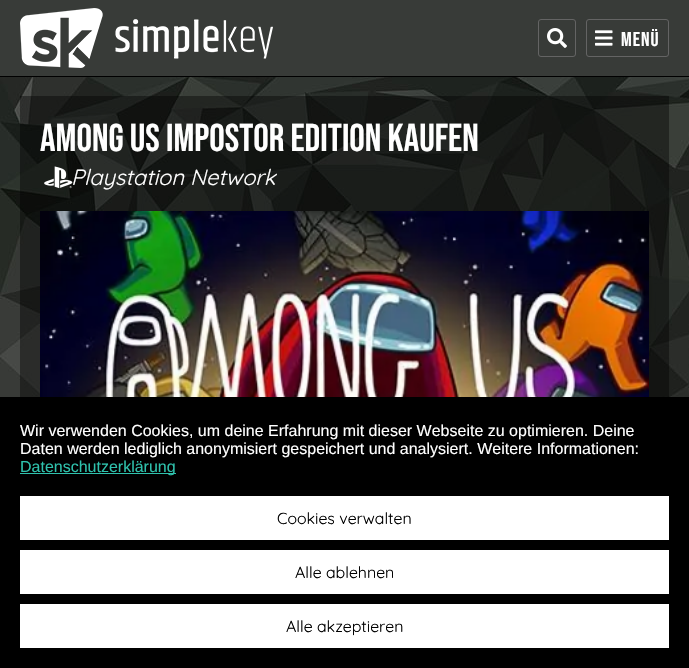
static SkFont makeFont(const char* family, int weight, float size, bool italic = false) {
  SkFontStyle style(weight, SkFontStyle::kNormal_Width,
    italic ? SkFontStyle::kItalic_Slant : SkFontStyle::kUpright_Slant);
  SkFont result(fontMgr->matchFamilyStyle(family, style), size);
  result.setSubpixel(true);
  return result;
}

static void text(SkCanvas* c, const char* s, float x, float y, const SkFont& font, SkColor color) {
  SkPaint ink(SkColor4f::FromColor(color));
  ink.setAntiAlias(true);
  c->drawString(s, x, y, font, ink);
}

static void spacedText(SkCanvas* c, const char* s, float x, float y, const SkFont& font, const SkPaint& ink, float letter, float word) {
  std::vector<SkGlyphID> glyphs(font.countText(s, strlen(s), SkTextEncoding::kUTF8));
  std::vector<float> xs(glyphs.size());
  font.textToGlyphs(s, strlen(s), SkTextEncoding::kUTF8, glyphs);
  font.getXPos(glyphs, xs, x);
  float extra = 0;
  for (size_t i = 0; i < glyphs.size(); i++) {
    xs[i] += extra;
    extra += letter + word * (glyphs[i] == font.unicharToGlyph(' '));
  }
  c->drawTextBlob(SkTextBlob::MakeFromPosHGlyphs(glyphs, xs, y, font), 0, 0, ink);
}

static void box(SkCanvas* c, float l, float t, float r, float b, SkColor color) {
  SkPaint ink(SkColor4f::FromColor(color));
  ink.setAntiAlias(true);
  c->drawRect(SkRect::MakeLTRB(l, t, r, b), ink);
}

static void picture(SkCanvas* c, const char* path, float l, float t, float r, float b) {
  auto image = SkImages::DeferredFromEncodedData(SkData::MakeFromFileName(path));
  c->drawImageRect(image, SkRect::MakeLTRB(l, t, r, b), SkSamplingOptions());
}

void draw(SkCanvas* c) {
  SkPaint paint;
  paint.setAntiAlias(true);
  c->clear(0xffffffff);
  box(c, 0, 0, 689, 76, 0xff383b38);
  box(c, 0, 76, 689, 77, 0xff000000);
  picture(c, "img_01.png", 20, 8, 273, 68);
  paint.setStyle(SkPaint::kStroke_Style);
  paint.setStrokeWidth(1);
  paint.setColor(0xff646464);
  c->drawRoundRect(SkRect::MakeLTRB(538.5f, 19.5f, 575.5f, 56.5f), 2.5f, 2.5f, paint);
  picture(c, "img_02.png", 547, 28, 567, 48);
  c->drawRoundRect(SkRect::MakeLTRB(586.5f, 19.5f, 668.5f, 56.5f), 2.5f, 2.5f, paint);
  picture(c, "img_03.png", 595, 30, 613, 46);
  SkFont face1 = makeFont("Bebas Neue", 400, 20);
  paint.setStyle(SkPaint::kFill_Style);
  paint.setColor(0xffffffff);
  spacedText(c, "Menü", 621, 46, face1, paint, 1, 0);
  picture(c, "img_04.png", 0, 77, 689, 397);
  SkFont face2 = makeFont("Bebas Neue", 400, 38.75f);
  text(c, "Among Us Impostor Edition kaufen", 40, 151, face2, 0xffffffff);
  picture(c, "img_05.png", 44, 166, 73, 189);
  SkFont face3 = makeFont("Quicksand", 400, 22, true);
  text(c, "Playstation Network", 71, 185, face3, 0xffffffff);
  picture(c, "img_06.png", 40, 211, 649, 397);
  box(c, 0, 397, 689, 668, 0xff000000);
  SkFont face4 = makeFont("Liberation Sans", 400, 16);
  text(c, "Wir verwenden Cookies, um deine Erfahrung mit dieser Webseite zu optimieren. Deine", 20, 436, face4, 0xffffffff);
  text(c, "Daten werden lediglich anonymisiert gespeichert und analysiert. Weitere Informationen:", 20, 454, face4, 0xffffffff);
  box(c, 20, 473, 176, 474, 0xff2fc2ad);
  text(c, "Datenschutzerklärung", 20, 472, face4, 0xff2fc2ad);
  box(c, 20, 496, 669, 540, 0xffffffff);
  SkFont face5 = makeFont("Quicksand", 400, 16);
  text(c, "Cookies verwalten", 277, 524, face5, 0xff000000);
  box(c, 20, 550, 669, 594, 0xffffffff);
  text(c, "Alle ablehnen", 295, 578, face5, 0xff000000);
  box(c, 20, 604, 669, 648, 0xffffffff);
  text(c, "Alle akzeptieren", 286, 632, face5, 0xff000000);
}
